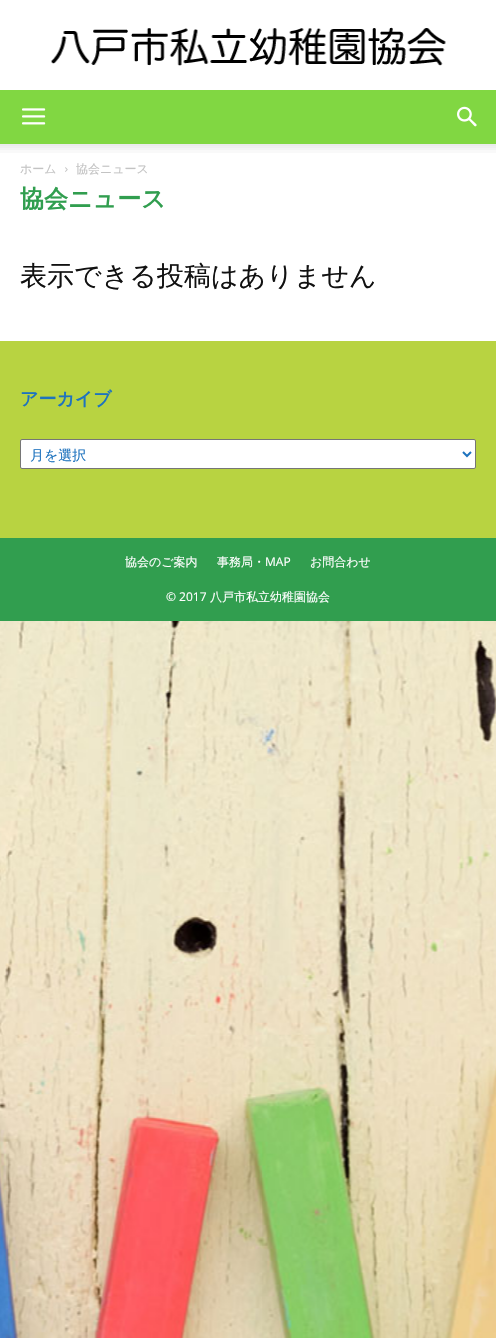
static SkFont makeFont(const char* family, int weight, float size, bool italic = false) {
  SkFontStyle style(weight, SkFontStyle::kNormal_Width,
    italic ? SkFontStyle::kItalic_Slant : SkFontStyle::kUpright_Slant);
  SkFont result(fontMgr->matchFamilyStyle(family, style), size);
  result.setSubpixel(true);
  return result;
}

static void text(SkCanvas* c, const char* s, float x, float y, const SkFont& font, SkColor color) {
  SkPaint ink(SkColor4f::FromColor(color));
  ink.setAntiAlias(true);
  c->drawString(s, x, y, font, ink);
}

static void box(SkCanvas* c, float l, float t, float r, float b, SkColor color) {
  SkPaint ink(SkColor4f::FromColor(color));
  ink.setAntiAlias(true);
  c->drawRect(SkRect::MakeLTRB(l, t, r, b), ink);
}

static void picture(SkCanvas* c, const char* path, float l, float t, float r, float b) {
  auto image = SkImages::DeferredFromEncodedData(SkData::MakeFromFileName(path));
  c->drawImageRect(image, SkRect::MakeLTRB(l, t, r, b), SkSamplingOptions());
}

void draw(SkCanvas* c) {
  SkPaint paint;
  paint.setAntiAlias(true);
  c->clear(0xffffffff);
  picture(c, "img_01.png", 51, 27, 446, 66);
  box(c, 0, 90, 496, 144, 0xff81d742);
  picture(c, "img_02.png", 22, 108, 46, 125);
  picture(c, "img_03.png", 457, 106, 477, 127);
  picture(c, "img_04.png", 0, 144, 496, 153);
  SkFont face1 = makeFont("WenQuanYi Zen Hei", 500, 12);
  text(c, "ホーム", 20, 173, face1, 0xffc3c3c3);
  picture(c, "img_05.png", 65, 167, 68, 172);
  text(c, "協会ニュース", 76, 173, face1, 0xffc3c3c3);
  SkFont face2 = makeFont("WenQuanYi Zen Hei", 700, 24);
  text(c, "協会ニュース", 20, 207, face2, 0xff319e4f);
  SkFont face3 = makeFont("WenQuanYi Zen Hei", 500, 27);
  text(c, "表示できる投稿はありません", 20, 285, face3, 0xff111111);
  box(c, 0, 341, 496, 538, 0xffb8d341);
  SkFont face4 = makeFont("WenQuanYi Zen Hei", 700, 18);
  text(c, "アーカイブ", 20, 405, face4, 0xff1e73be);
  paint.setColor(0xffffffff);
  c->drawRoundRect(SkRect::MakeLTRB(20.5f, 439.5f, 475.5f, 468.5f), 1.5f, 1.5f, paint);
  paint.setStyle(SkPaint::kStroke_Style);
  paint.setStrokeWidth(1);
  paint.setColor(0xff767676);
  c->drawRoundRect(SkRect::MakeLTRB(20.5f, 439.5f, 475.5f, 468.5f), 1.5f, 1.5f, paint);
  paint.setStrokeWidth(2);
  paint.setColor(0xff1e73be);
  c->drawPath(SkPathBuilder().moveTo(463, 452).lineTo(467, 456).lineTo(471, 452).detach(), paint);
  SkFont face5 = makeFont("WenQuanYi Zen Hei", 500, 14);
  text(c, "月を選択", 30, 460, face5, 0xff1e73be);
  box(c, 0, 538, 496, 621, 0xff319e4f);
  text(c, "協会のご案内", 125, 566, face1, 0xffffffff);
  text(c, "事務局・", 217, 566, face1, 0xffffffff);
  SkFont face6 = makeFont("Open Sans", 400, 12);
  text(c, "MAP", 265, 566, face6, 0xffffffff);
  text(c, "お問合わせ", 310, 566, face1, 0xffffffff);
  text(c, "© 2017", 166, 601, face6, 0xffffffff);
  text(c, "八戸市私立幼稚園協会", 210, 601, face1, 0xffffffff);
  picture(c, "img_06.png", 0, 621, 496, 1338);
}
